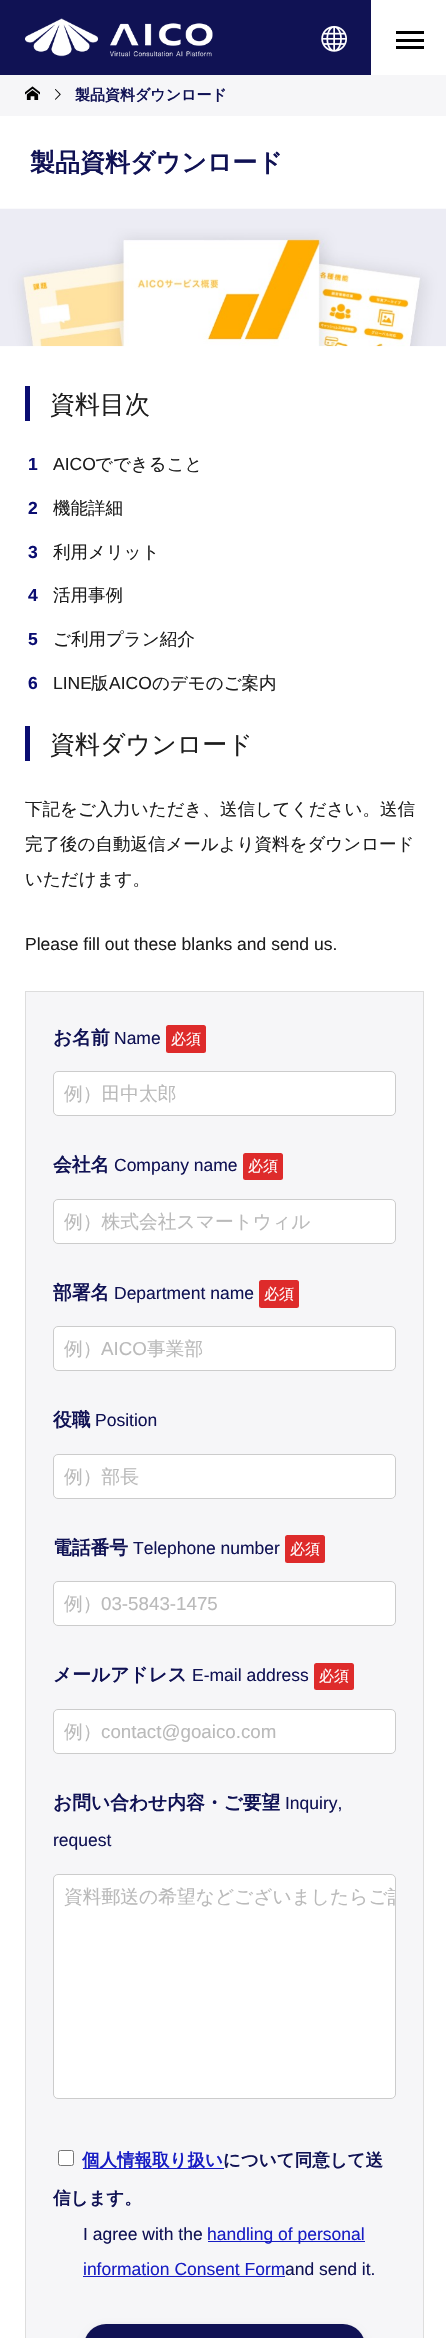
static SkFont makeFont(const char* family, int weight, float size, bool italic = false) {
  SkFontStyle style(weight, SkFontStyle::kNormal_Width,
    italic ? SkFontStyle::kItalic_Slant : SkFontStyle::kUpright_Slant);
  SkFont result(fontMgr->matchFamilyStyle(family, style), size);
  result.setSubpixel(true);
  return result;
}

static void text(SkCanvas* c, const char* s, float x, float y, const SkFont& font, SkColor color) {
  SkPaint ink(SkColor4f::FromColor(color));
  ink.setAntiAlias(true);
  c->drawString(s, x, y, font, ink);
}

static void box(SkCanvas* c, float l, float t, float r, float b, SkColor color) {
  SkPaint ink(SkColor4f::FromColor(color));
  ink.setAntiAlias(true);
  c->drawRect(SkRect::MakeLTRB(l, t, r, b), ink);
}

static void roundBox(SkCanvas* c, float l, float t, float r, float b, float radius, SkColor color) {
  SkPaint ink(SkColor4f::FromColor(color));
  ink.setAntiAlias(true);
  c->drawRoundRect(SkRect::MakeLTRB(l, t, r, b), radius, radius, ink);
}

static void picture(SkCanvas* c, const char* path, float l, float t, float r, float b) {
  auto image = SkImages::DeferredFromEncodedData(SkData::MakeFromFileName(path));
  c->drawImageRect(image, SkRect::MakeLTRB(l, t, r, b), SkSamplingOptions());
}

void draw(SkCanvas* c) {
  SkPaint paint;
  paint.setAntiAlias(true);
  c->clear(0xffffffff);
  box(c, 0, 0, 371, 75, 0xff101254);
  picture(c, "img_01.png", 25, 18, 213, 57);
  picture(c, "img_02.png", 321, 25, 347, 52);
  box(c, 396, 31, 424, 34, 0xff000000);
  box(c, 396, 39, 424, 42, 0xff000000);
  box(c, 396, 46, 424, 49, 0xff000000);
  box(c, 0, 75, 446, 116, 0xfff6f6f8);
  picture(c, "img_03.png", 25, 86, 40, 100);
  picture(c, "img_04.png", 55, 89, 61, 100);
  SkFont face1 = makeFont("WenQuanYi Zen Hei", 700, 15);
  text(c, "製品資料ダウンロード", 75, 100, face1, 0xff101254);
  SkFont face2 = makeFont("WenQuanYi Zen Hei", 700, 25);
  text(c, "製品資料ダウンロード", 30, 171, face2, 0xff101254);
  picture(c, "img_05.png", 0, 208, 446, 347);
  box(c, 25, 386, 30, 421, 0xff0a0d71);
  SkFont face3 = makeFont("WenQuanYi Zen Hei", 500, 25);
  text(c, "資料目次", 50, 413, face3, 0xff1d1d1d);
  SkFont face4 = makeFont("Liberation Sans", 700, 17.5f);
  text(c, "1", 28, 470, face4, 0xff0a0d71);
  SkFont face5 = makeFont("Liberation Sans", 400, 17.5f);
  text(c, "AICO", 53, 470, face5, 0xff1d1d1d);
  SkFont face6 = makeFont("WenQuanYi Zen Hei", 500, 17.5f);
  text(c, "でできること", 95, 470, face6, 0xff1d1d1d);
  text(c, "2", 28, 514, face4, 0xff0a0d71);
  text(c, "機能詳細", 53, 514, face6, 0xff1d1d1d);
  text(c, "3", 28, 558, face4, 0xff0a0d71);
  text(c, "利用メリット", 53, 558, face6, 0xff1d1d1d);
  text(c, "4", 28, 601, face4, 0xff0a0d71);
  text(c, "活用事例", 53, 601, face6, 0xff1d1d1d);
  text(c, "5", 28, 645, face4, 0xff0a0d71);
  text(c, "ご利用プラン紹介", 53, 645, face6, 0xff1d1d1d);
  text(c, "6", 28, 689, face4, 0xff0a0d71);
  text(c, "LINE", 53, 689, face5, 0xff1d1d1d);
  text(c, "版", 91, 689, face6, 0xff1d1d1d);
  text(c, "AICO", 109, 689, face5, 0xff1d1d1d);
  text(c, "のデモのご案内", 152, 689, face6, 0xff1d1d1d);
  box(c, 25, 726, 30, 761, 0xff0a0d71);
  text(c, "資料ダウンロード", 50, 753, face3, 0xff1d1d1d);
  text(c, "下記をご入力いただき、送信してください。送信", 25, 815, face6, 0xff1d1d1d);
  text(c, "完了後の自動返信メールより資料をダウンロード", 25, 850, face6, 0xff1d1d1d);
  text(c, "いただけます。", 25, 885, face6, 0xff1d1d1d);
  text(c, "Please fill out these blanks and send us.", 25, 950, face5, 0xff1d1d1d);
  paint.setColor(0xfff6f6f8);
  c->drawRect(SkRect::MakeLTRB(25.5f, 991.5f, 423.5f, 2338.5f), paint);
  paint.setStyle(SkPaint::kStroke_Style);
  paint.setStrokeWidth(1);
  paint.setColor(0xffdddddd);
  c->drawRect(SkRect::MakeLTRB(25.5f, 991.5f, 423.5f, 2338.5f), paint);
  SkFont face7 = makeFont("WenQuanYi Zen Hei", 700, 18.75f);
  text(c, "お名前", 53, 1044, face7, 0xff101254);
  text(c, "Name", 114, 1044, face5, 0xff101254);
  roundBox(c, 166, 1025, 206, 1053, 2.5f, 0xffde2b2b);
  SkFont face8 = makeFont("WenQuanYi Zen Hei", 500, 15);
  text(c, "必須", 171, 1044, face8, 0xffffffff);
  paint.setStyle(SkPaint::kFill_Style);
  paint.setColor(0xffffffff);
  c->drawRoundRect(SkRect::MakeLTRB(53.5f, 1071.5f, 395.5f, 1115.5f), 4.5f, 4.5f, paint);
  paint.setStyle(SkPaint::kStroke_Style);
  paint.setColor(0xffcccccc);
  c->drawRoundRect(SkRect::MakeLTRB(53.5f, 1071.5f, 395.5f, 1115.5f), 4.5f, 4.5f, paint);
  SkFont face9 = makeFont("WenQuanYi Zen Hei", 500, 18.75f);
  text(c, "例）田中太郎", 64, 1100, face9, 0xffbababa);
  text(c, "会社名", 53, 1171, face7, 0xff101254);
  text(c, "Company name", 114, 1171, face5, 0xff101254);
  roundBox(c, 243, 1153, 283, 1180, 2.5f, 0xffde2b2b);
  text(c, "必須", 248, 1171, face8, 0xffffffff);
  paint.setStyle(SkPaint::kFill_Style);
  paint.setColor(0xffffffff);
  c->drawRoundRect(SkRect::MakeLTRB(53.5f, 1199.5f, 395.5f, 1243.5f), 4.5f, 4.5f, paint);
  paint.setStyle(SkPaint::kStroke_Style);
  paint.setColor(0xffcccccc);
  c->drawRoundRect(SkRect::MakeLTRB(53.5f, 1199.5f, 395.5f, 1243.5f), 4.5f, 4.5f, paint);
  text(c, "例）株式会社スマートウィル", 64, 1228, face9, 0xffbababa);
  text(c, "部署名", 53, 1299, face7, 0xff101254);
  text(c, "Department name", 114, 1299, face5, 0xff101254);
  roundBox(c, 259, 1280, 299, 1308, 2.5f, 0xffde2b2b);
  text(c, "必須", 264, 1299, face8, 0xffffffff);
  paint.setStyle(SkPaint::kFill_Style);
  paint.setColor(0xffffffff);
  c->drawRoundRect(SkRect::MakeLTRB(53.5f, 1326.5f, 395.5f, 1370.5f), 4.5f, 4.5f, paint);
  paint.setStyle(SkPaint::kStroke_Style);
  paint.setColor(0xffcccccc);
  c->drawRoundRect(SkRect::MakeLTRB(53.5f, 1326.5f, 395.5f, 1370.5f), 4.5f, 4.5f, paint);
  text(c, "例）", 64, 1355, face9, 0xffbababa);
  SkFont face10 = makeFont("Liberation Sans", 400, 18.75f);
  text(c, "AICO", 101, 1355, face10, 0xffbababa);
  text(c, "事業部", 147, 1355, face9, 0xffbababa);
  text(c, "役職", 53, 1426, face7, 0xff101254);
  text(c, "Position", 95, 1426, face5, 0xff101254);
  paint.setStyle(SkPaint::kFill_Style);
  paint.setColor(0xffffffff);
  c->drawRoundRect(SkRect::MakeLTRB(53.5f, 1454.5f, 395.5f, 1498.5f), 4.5f, 4.5f, paint);
  paint.setStyle(SkPaint::kStroke_Style);
  paint.setColor(0xffcccccc);
  c->drawRoundRect(SkRect::MakeLTRB(53.5f, 1454.5f, 395.5f, 1498.5f), 4.5f, 4.5f, paint);
  text(c, "例）部長", 64, 1483, face9, 0xffbababa);
  text(c, "電話番号", 53, 1554, face7, 0xff101254);
  text(c, "Telephone number", 133, 1554, face5, 0xff101254);
  roundBox(c, 285, 1535, 325, 1563, 2.5f, 0xffde2b2b);
  text(c, "必須", 290, 1554, face8, 0xffffffff);
  paint.setStyle(SkPaint::kFill_Style);
  paint.setColor(0xffffffff);
  c->drawRoundRect(SkRect::MakeLTRB(53.5f, 1581.5f, 395.5f, 1625.5f), 4.5f, 4.5f, paint);
  paint.setStyle(SkPaint::kStroke_Style);
  paint.setColor(0xffcccccc);
  c->drawRoundRect(SkRect::MakeLTRB(53.5f, 1581.5f, 395.5f, 1625.5f), 4.5f, 4.5f, paint);
  text(c, "例）", 64, 1610, face9, 0xffbababa);
  text(c, "03-5843-1475", 101, 1610, face10, 0xffbababa);
  text(c, "メールアドレス", 53, 1681, face7, 0xff101254);
  text(c, "E-mail address", 192, 1681, face5, 0xff101254);
  roundBox(c, 314, 1663, 354, 1690, 2.5f, 0xffde2b2b);
  text(c, "必須", 319, 1681, face8, 0xffffffff);
  paint.setStyle(SkPaint::kFill_Style);
  paint.setColor(0xffffffff);
  c->drawRoundRect(SkRect::MakeLTRB(53.5f, 1709.5f, 395.5f, 1753.5f), 4.5f, 4.5f, paint);
  paint.setStyle(SkPaint::kStroke_Style);
  paint.setColor(0xffcccccc);
  c->drawRoundRect(SkRect::MakeLTRB(53.5f, 1709.5f, 395.5f, 1753.5f), 4.5f, 4.5f, paint);
  text(c, "例）", 64, 1738, face9, 0xffbababa);
  text(c, "contact@goaico.com", 101, 1738, face10, 0xffbababa);
  text(c, "お問い合わせ内容・ご要望", 53, 1809, face7, 0xff101254);
  text(c, "Inquiry,", 285, 1809, face5, 0xff101254);
  text(c, "request", 53, 1846, face5, 0xff101254);
  paint.setStyle(SkPaint::kFill_Style);
  paint.setColor(0xffffffff);
  c->drawRoundRect(SkRect::MakeLTRB(53.5f, 1874.5f, 395.5f, 2098.5f), 4.5f, 4.5f, paint);
  paint.setStyle(SkPaint::kStroke_Style);
  paint.setColor(0xffcccccc);
  c->drawRoundRect(SkRect::MakeLTRB(53.5f, 1874.5f, 395.5f, 2098.5f), 4.5f, 4.5f, paint);
  c->save();
  c->clipPath(SkPathBuilder().moveTo(58, 1875).lineTo(391, 1875).cubicTo(393, 1875, 395, 1877, 395, 1879).lineTo(395, 2094).cubicTo(395, 2096, 393, 2098, 391, 2098).lineTo(58, 2098).cubicTo(56, 2098, 54, 2096, 54, 2094).lineTo(54, 1879).cubicTo(54, 1877, 56, 1875, 58, 1875).close().detach(), true);
  text(c, "資料郵送の希望などございましたらご記", 64, 1903, face9, 0xffbababa);
  c->restore();
  paint.setStyle(SkPaint::kFill_Style);
  paint.setColor(0xffffffff);
  c->drawRoundRect(SkRect::MakeLTRB(58.5f, 2150.5f, 73.5f, 2165.5f), 2, 2, paint);
  paint.setStyle(SkPaint::kStroke_Style);
  paint.setColor(0xff767676);
  c->drawRoundRect(SkRect::MakeLTRB(58.5f, 2150.5f, 73.5f, 2165.5f), 2, 2, paint);
  box(c, 83, 2168, 224, 2169, 0xff181dc4);
  SkFont face11 = makeFont("WenQuanYi Zen Hei", 700, 17.5f);
  text(c, "個人情報取り扱い", 82, 2166, face11, 0xff181dc4);
  text(c, "について同意して送", 223, 2166, face11, 0xff101254);
  text(c, "信します。", 53, 2204, face11, 0xff101254);
  text(c, "I agree with the", 83, 2240, face5, 0xff101254);
  box(c, 208, 2241, 365, 2242, 0xff181dc4);
  text(c, "handling of personal", 207, 2240, face5, 0xff181dc4);
  text(c, "information Consent Form", 83, 2275, face5, 0xff181dc4);
  box(c, 83, 2276, 285, 2277, 0xff181dc4);
  text(c, "and send it.", 285, 2275, face5, 0xff101254);
  paint.setStyle(SkPaint::kFill_Style);
  paint.setColor(0x29000000);
  paint.setMaskFilter(SkMaskFilter::MakeBlur(kNormal_SkBlurStyle, 4));
  c->drawRoundRect(SkRect::MakeLTRB(84, 2328, 365, 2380), 30, 30, paint);
  paint.setMaskFilter(nullptr);
  roundBox(c, 84, 2324, 365, 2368, 30, 0xff101254);
}
